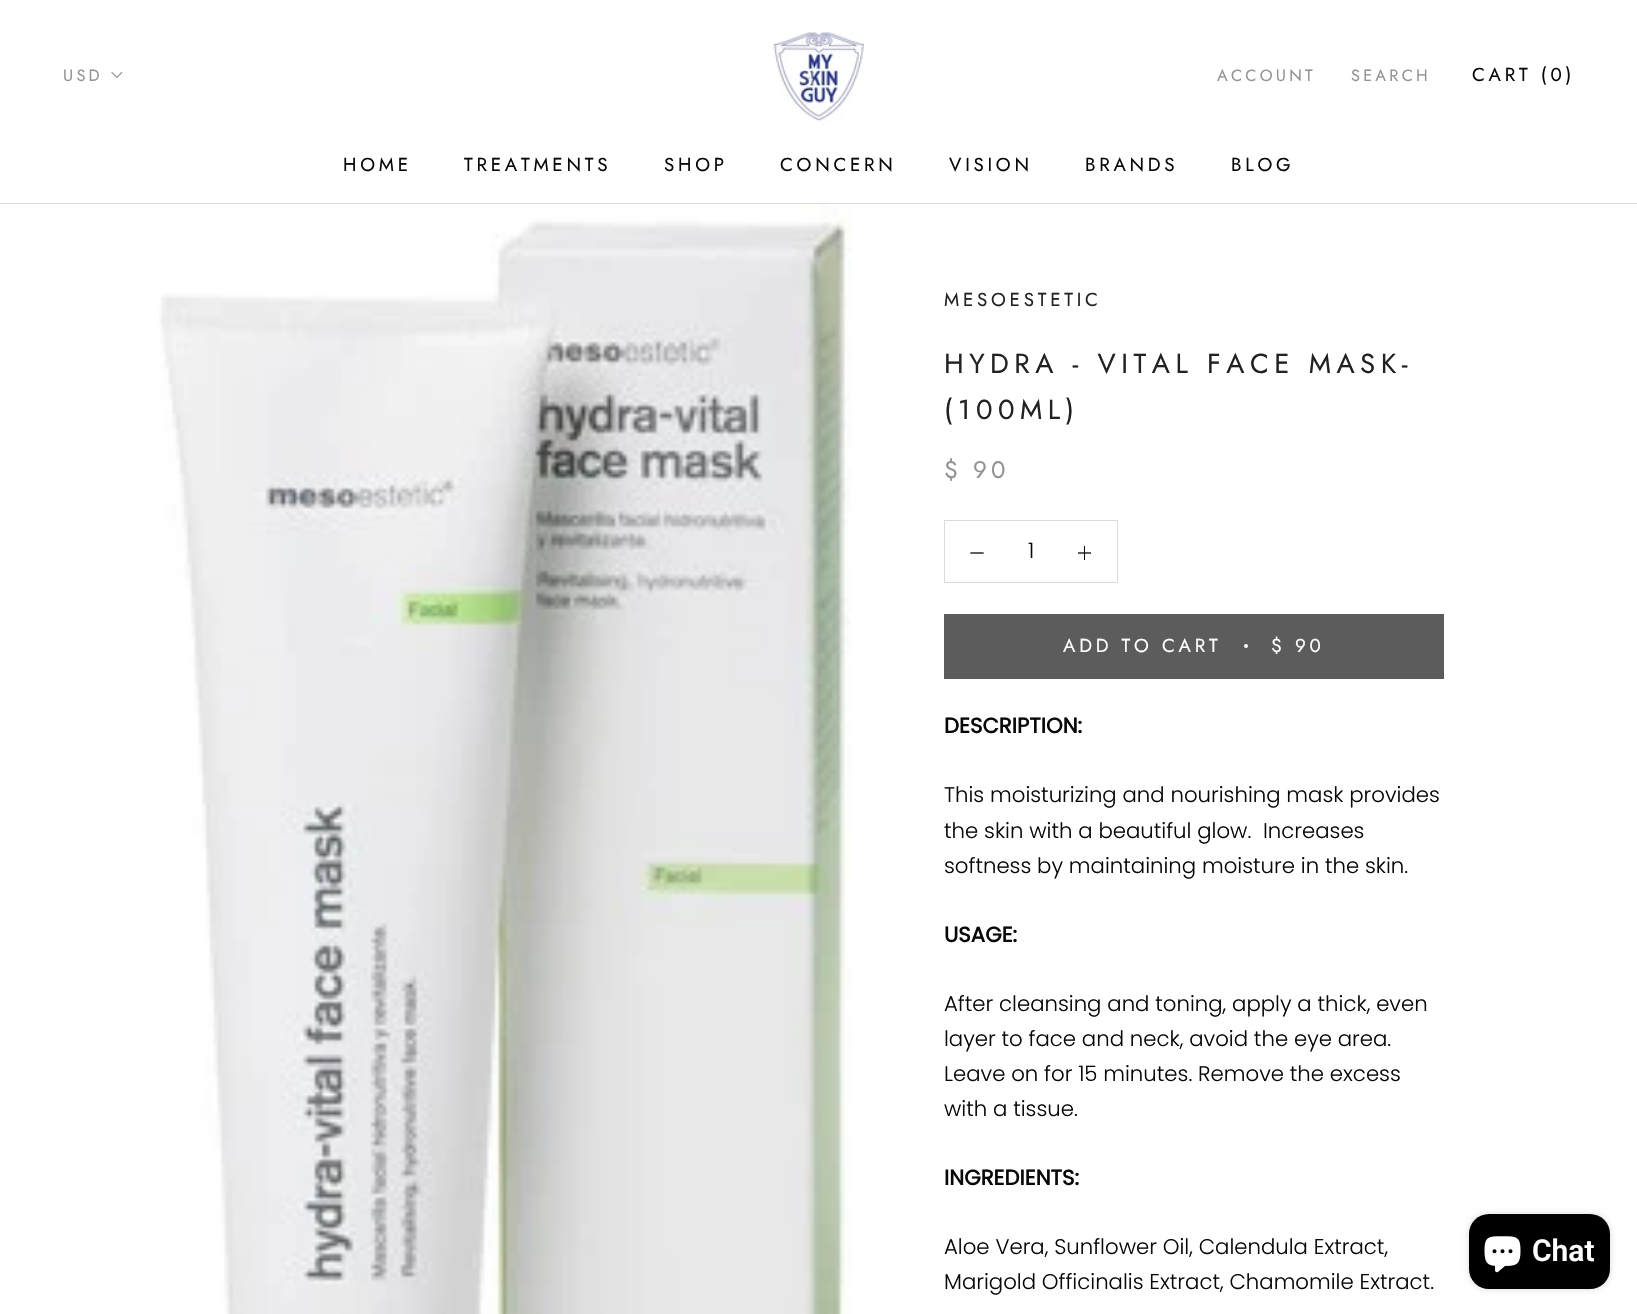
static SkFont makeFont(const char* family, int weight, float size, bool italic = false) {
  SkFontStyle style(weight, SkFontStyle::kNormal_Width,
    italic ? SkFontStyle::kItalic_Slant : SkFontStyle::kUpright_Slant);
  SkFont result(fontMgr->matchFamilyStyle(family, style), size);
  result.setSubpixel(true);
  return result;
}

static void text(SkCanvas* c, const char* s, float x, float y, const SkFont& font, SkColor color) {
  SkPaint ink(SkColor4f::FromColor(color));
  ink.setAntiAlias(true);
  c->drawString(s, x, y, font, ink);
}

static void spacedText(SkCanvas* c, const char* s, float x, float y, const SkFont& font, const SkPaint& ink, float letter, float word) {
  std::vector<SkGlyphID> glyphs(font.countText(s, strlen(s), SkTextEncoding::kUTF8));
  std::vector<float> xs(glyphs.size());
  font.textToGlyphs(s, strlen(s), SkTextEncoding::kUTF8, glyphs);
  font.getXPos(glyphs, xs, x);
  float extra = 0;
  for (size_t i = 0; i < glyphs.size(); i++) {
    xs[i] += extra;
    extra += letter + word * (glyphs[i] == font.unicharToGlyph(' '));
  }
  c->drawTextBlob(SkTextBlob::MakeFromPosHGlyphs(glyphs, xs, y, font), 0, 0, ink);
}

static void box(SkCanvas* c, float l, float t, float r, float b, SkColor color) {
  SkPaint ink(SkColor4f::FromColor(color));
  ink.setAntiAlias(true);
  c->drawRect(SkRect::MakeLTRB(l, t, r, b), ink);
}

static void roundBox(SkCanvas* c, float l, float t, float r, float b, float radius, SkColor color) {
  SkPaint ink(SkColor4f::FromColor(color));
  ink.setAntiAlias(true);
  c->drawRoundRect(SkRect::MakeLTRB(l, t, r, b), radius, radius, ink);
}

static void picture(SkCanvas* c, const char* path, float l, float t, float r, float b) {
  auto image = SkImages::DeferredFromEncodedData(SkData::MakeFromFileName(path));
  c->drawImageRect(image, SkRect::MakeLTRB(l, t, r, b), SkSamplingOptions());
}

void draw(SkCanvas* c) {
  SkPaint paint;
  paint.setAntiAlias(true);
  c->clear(0xffffffff);
  box(c, 0, 203, 1637, 204, 0xffdadada);
  picture(c, "img_01.png", 773, 32, 864, 122);
  SkFont face1 = makeFont("Jost", 400, 16.25f);
  paint.setColor(0xff939393);
  spacedText(c, "ACCOUNT", 1217, 81, face1, paint, 3.25f, 0);
  spacedText(c, "SEARCH", 1351, 81, face1, paint, 3.25f, 0);
  SkFont face2 = makeFont("Jost", 400, 18.75f);
  paint.setColor(0xff080808);
  spacedText(c, "CART (0)", 1472, 81, face2, paint, 3.75f, 0);
  paint.setColor(0xff939393);
  spacedText(c, "USD", 63, 81, face1, paint, 3.25f, 0);
  paint.setStyle(SkPaint::kStroke_Style);
  paint.setStrokeWidth(1.2f);
  paint.setStrokeCap(SkPaint::kSquare_Cap);
  c->drawPath(SkPathBuilder().moveTo(121.5f, 72.5f).lineTo(117, 77.5f).lineTo(112, 72.5f).detach(), paint);
  paint.setStyle(SkPaint::kFill_Style);
  paint.setColor(0xff080808);
  spacedText(c, "HOME", 343, 171, face2, paint, 3.75f, 0);
  spacedText(c, "TREATMENTS", 464, 171, face2, paint, 3.75f, 0);
  spacedText(c, "SHOP", 664, 171, face2, paint, 3.75f, 0);
  spacedText(c, "CONCERN", 780, 171, face2, paint, 3.75f, 0);
  spacedText(c, "VISION", 949, 171, face2, paint, 3.75f, 0);
  spacedText(c, "BRANDS", 1085, 171, face2, paint, 3.75f, 0);
  spacedText(c, "BLOG", 1231, 171, face2, paint, 3.75f, 0);
  picture(c, "img_02.png", 159, 204, 852, 1314);
  paint.setColor(0xff232222);
  spacedText(c, "MESOESTETIC", 944, 306, face2, paint, 3.75f, 0);
  SkFont face3 = makeFont("Jost", 400, 27.5f);
  spacedText(c, "HYDRA - VITAL FACE MASK-", 944, 373, face3, paint, 5.5f, 0);
  spacedText(c, "(100ML)", 944, 419, face3, paint, 5.5f, 0);
  SkFont face4 = makeFont("Jost", 400, 24);
  paint.setColor(0xff939393);
  spacedText(c, "$ 90", 944, 478, face4, paint, 4, 0);
  paint.setStyle(SkPaint::kStroke_Style);
  paint.setStrokeWidth(1);
  paint.setStrokeCap(SkPaint::kButt_Cap);
  paint.setColor(0xffdadada);
  c->drawRect(SkRect::MakeLTRB(944.5f, 520.5f, 1117.5f, 582.5f), paint);
  paint.setStrokeWidth(1.3f);
  paint.setStrokeCap(SkPaint::kSquare_Cap);
  paint.setColor(0xff080808);
  c->drawPath(SkPathBuilder().moveTo(971, 553).lineTo(983, 553).detach(), paint);
  SkFont face5 = makeFont("Poppins", 300, 21.25f);
  text(c, "1", 1028, 558, face5, 0xff080808);
  box(c, 1084, 546, 1085, 560, 0xff080808);
  c->save();
  c->clipRect(SkRect::MakeLTRB(1078, 546, 1091, 560));
  c->drawPath(SkPathBuilder().moveTo(1078.5f, 553).lineTo(1090.5f, 553).detach(), paint);
  c->restore();
  paint.setStrokeWidth(1);
  paint.setStrokeCap(SkPaint::kButt_Cap);
  paint.setColor(0xff5c5c5c);
  c->drawRect(SkRect::MakeLTRB(944.5f, 614.5f, 1443.5f, 678.5f), paint);
  box(c, 945, 615, 1443, 678, 0xff5c5c5c);
  paint.setStyle(SkPaint::kFill_Style);
  paint.setColor(0xffffffff);
  spacedText(c, "ADD TO CART", 1063, 652, face2, paint, 3.75f, 0);
  c->drawCircle(1246, 646, 2, paint);
  spacedText(c, "$ 90", 1271, 652, face2, paint, 3.75f, 0);
  SkFont face6 = makeFont("Poppins", 700, 21.25f);
  text(c, "DESCRIPTION:", 944, 733, face6, 0xff080808);
  text(c, "This moisturizing and nourishing mask provides", 944, 802, face5, 0xff080808);
  text(c, "the skin with a beautiful glow.  Increases", 944, 838, face5, 0xff080808);
  text(c, "softness by maintaining moisture in the skin.", 944, 873, face5, 0xff080808);
  text(c, "USAGE:", 944, 942, face6, 0xff080808);
  text(c, "After cleansing and toning, apply a thick, even", 944, 1011, face5, 0xff080808);
  text(c, "layer to face and neck, avoid the eye area.", 944, 1046, face5, 0xff080808);
  text(c, "Leave on for 15 minutes. Remove the excess", 944, 1081, face5, 0xff080808);
  text(c, "with a tissue.", 944, 1116, face5, 0xff080808);
  text(c, "INGREDIENTS:", 944, 1185, face6, 0xff080808);
  text(c, "Aloe Vera, Sunflower Oil, Calendula Extract,", 944, 1254, face5, 0xff080808);
  text(c, "Marigold Officinalis Extract, Chamomile Extract.", 944, 1289, face5, 0xff080808);
  paint.setColor(0x26000000);
  paint.setMaskFilter(SkMaskFilter::MakeBlur(kNormal_SkBlurStyle, 3));
  c->drawRoundRect(SkRect::MakeLTRB(1469, 1214, 1610, 1289), 20, 20, paint);
  paint.setMaskFilter(nullptr);
  roundBox(c, 1469, 1214, 1610, 1289, 20, 0xff000000);
  picture(c, "img_03.png", 1484, 1236, 1521, 1273);
  SkFont face7 = makeFont("Roboto", 600, 30);
  text(c, "Chat", 1532, 1261, face7, 0xffffffff);
}
